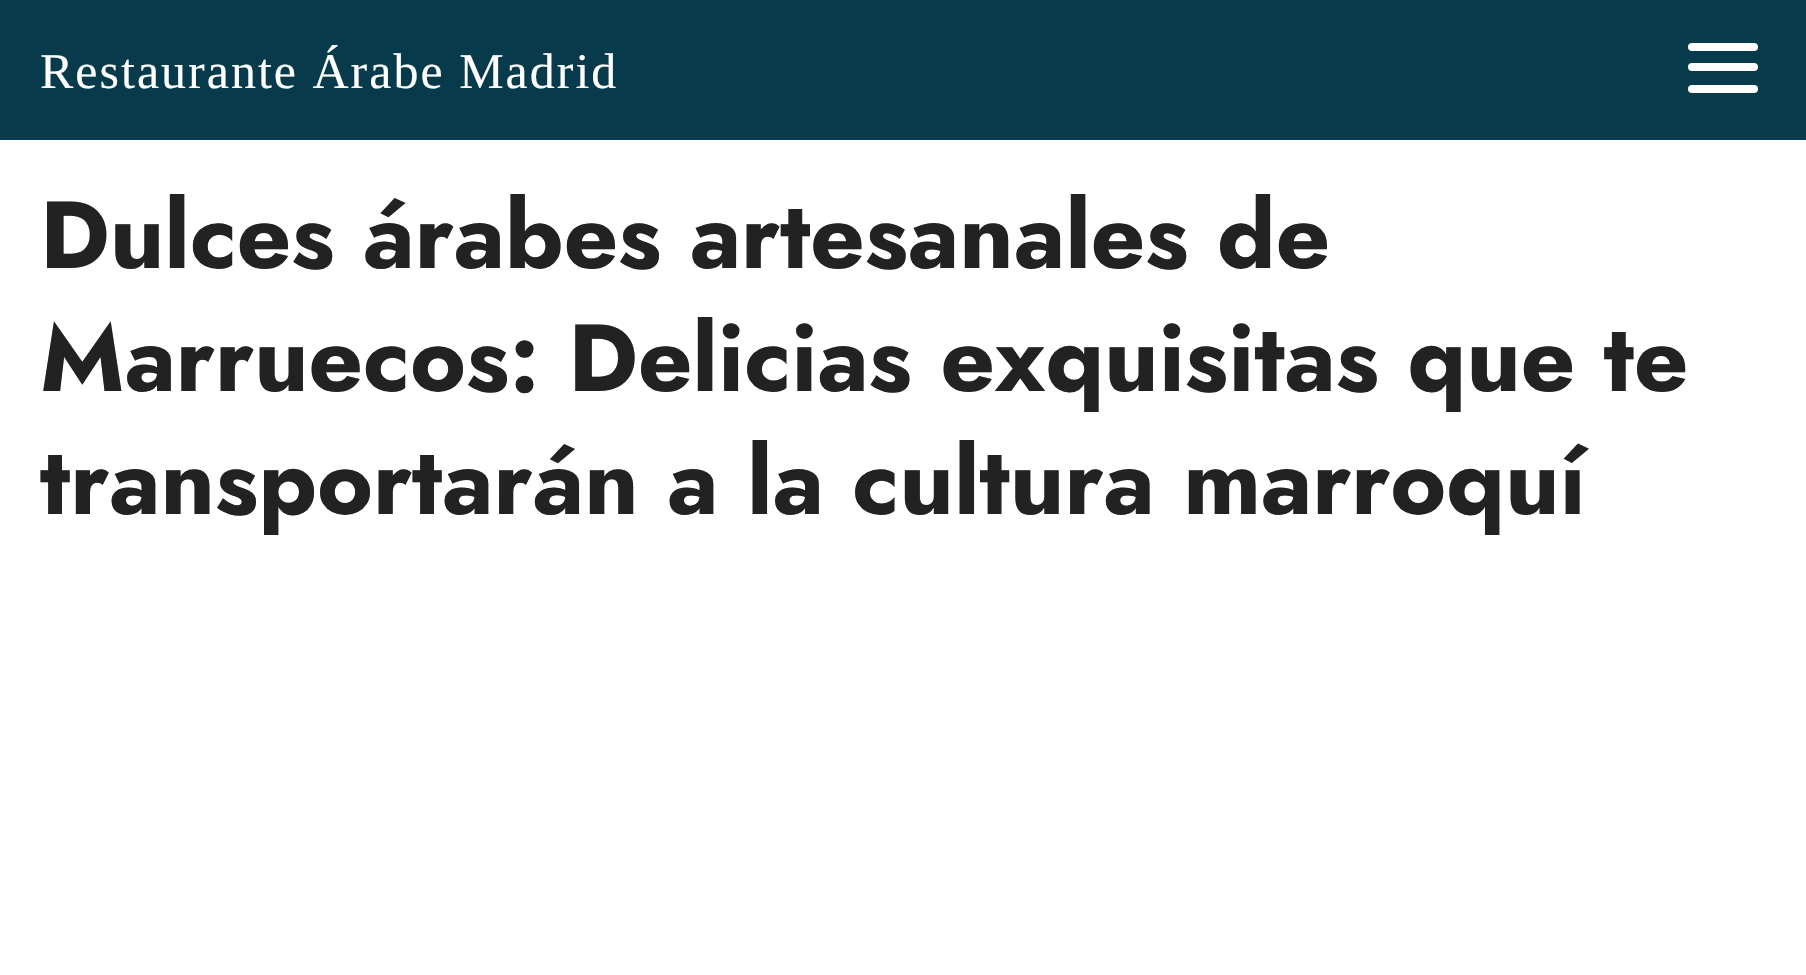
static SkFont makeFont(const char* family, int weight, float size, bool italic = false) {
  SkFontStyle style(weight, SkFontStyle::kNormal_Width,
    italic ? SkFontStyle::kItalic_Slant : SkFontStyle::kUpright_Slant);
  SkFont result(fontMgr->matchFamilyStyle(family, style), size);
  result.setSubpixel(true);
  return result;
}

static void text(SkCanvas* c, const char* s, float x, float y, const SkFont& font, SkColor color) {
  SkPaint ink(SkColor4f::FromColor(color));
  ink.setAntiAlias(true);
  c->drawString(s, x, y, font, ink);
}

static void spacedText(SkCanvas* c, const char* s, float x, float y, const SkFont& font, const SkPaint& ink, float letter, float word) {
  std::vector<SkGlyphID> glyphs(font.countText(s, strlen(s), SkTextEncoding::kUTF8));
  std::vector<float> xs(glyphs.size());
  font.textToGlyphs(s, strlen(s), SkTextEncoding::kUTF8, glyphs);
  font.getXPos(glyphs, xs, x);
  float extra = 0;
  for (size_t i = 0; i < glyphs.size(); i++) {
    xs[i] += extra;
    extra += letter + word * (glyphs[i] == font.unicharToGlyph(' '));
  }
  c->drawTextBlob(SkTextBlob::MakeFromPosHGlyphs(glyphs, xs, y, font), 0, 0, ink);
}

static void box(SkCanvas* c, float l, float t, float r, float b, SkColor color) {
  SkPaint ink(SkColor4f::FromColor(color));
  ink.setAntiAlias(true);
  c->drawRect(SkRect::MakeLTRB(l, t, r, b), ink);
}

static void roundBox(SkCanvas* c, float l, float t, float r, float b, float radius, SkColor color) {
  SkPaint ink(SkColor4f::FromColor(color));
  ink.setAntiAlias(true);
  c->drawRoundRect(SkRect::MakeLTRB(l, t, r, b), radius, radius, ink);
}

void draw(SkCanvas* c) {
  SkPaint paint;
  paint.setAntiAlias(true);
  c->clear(0xffffffff);
  box(c, 0, 0, 1806, 140, 0xff073b4c);
  SkFont face1 = makeFont("Liberation Serif", 400, 50);
  paint.setColor(0xffffffff);
  spacedText(c, "Restaurante Árabe Madrid", 40, 88, face1, paint, 2, 0);
  roundBox(c, 1688, 43, 1758, 51, 4, 0xffffffff);
  roundBox(c, 1688, 63, 1758, 71, 4, 0xffffffff);
  roundBox(c, 1688, 85, 1758, 93, 4, 0xffffffff);
  SkFont face2 = makeFont("Jost", 700, 95);
  text(c, "Dulces árabes artesanales de", 40, 268, face2, 0xff222222);
  text(c, "Marruecos: Delicias exquisitas que te", 40, 391, face2, 0xff222222);
  text(c, "transportarán a la cultura marroquí", 40, 514, face2, 0xff222222);
}
